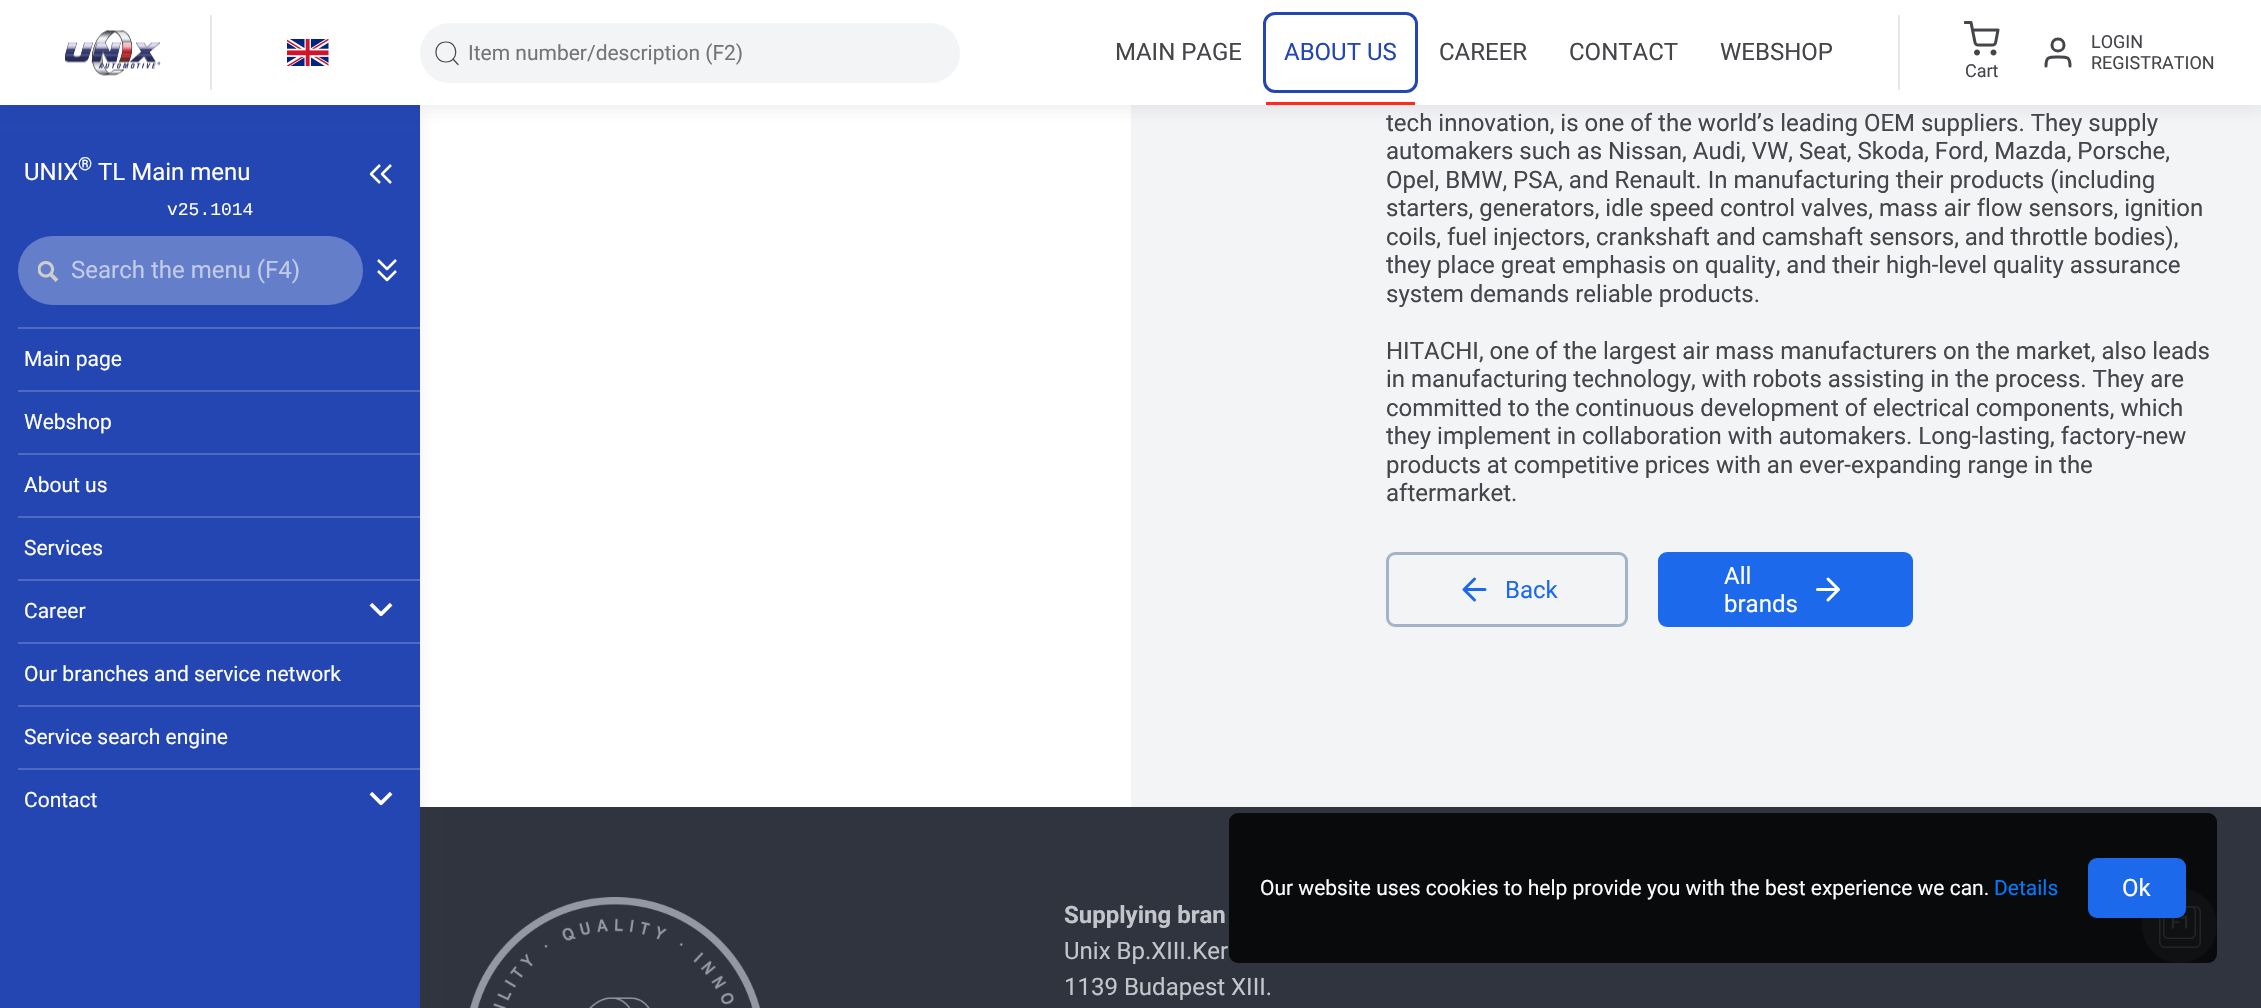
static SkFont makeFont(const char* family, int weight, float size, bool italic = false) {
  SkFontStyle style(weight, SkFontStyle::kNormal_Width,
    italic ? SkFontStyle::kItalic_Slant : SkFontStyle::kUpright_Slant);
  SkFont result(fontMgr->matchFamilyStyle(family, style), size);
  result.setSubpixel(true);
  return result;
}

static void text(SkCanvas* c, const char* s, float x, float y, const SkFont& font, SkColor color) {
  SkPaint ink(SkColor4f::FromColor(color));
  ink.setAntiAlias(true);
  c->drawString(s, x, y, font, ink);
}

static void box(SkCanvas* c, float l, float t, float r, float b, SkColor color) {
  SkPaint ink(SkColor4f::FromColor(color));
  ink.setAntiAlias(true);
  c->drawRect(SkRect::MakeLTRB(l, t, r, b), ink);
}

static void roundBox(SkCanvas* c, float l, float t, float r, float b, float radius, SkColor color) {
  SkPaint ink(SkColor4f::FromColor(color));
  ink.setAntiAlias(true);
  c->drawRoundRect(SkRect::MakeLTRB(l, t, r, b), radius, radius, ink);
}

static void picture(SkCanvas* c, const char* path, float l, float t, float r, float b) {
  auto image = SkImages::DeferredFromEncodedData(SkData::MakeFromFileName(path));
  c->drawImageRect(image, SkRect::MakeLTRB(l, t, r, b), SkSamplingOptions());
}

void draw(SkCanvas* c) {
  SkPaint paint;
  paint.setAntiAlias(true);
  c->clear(0xfff3f4f6);
  box(c, 420, 105, 1131, 807, 0xffffffff);
  box(c, 420, 807, 2261, 1008, 0xff30343f);
  paint.setColor(0x1430343f);
  paint.setMaskFilter(SkMaskFilter::MakeBlur(kNormal_SkBlurStyle, 7.5f));
  c->drawRect(SkRect::MakeLTRB(0, 111, 420, 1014), paint);
  paint.setMaskFilter(nullptr);
  box(c, 0, 105, 420, 1008, 0xff2346b2);
  paint.setMaskFilter(SkMaskFilter::MakeBlur(kNormal_SkBlurStyle, 7.5f));
  c->drawRect(SkRect::MakeLTRB(0, 6, 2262, 111), paint);
  paint.setMaskFilter(nullptr);
  box(c, 0, 0, 2261, 105, 0xffffffff);
  picture(c, "img_01.png", 65, 30, 161, 76);
  box(c, 210, 15, 212, 90, 0xffe6e7eb);
  picture(c, "img_02.png", 287, 39, 329, 66);
  roundBox(c, 420, 23, 960, 83, 30, 0xfff3f4f6);
  paint.setStyle(SkPaint::kStroke_Style);
  paint.setStrokeWidth(1.2f);
  paint.setStrokeCap(SkPaint::kRound_Cap);
  paint.setStrokeJoin(SkPaint::kRound_Join);
  paint.setColor(0xff44464a);
  c->drawPath(SkPathBuilder().moveTo(446, 62).cubicTo(459, 62, 459, 42, 446, 42).cubicTo(432.5f, 42, 432.5f, 62, 446, 62).close().moveTo(458, 64.5f).lineTo(453, 59).detach(), paint);
  SkFont face1 = makeFont("Roboto", 400, 21);
  text(c, "Item number/description (F2)", 468, 60, face1, 0xff757575);
  SkFont face2 = makeFont("Roboto", 400, 24);
  text(c, "MAIN PAGE", 1115, 60, face2, 0xff44464a);
  paint.setStrokeWidth(3);
  paint.setStrokeCap(SkPaint::kButt_Cap);
  paint.setStrokeJoin(SkPaint::kMiter_Join);
  paint.setColor(0xff2346b2);
  c->drawRoundRect(SkRect::MakeLTRB(1264.5f, 13.5f, 1416.5f, 91.5f), 10.5f, 10.5f, paint);
  text(c, "ABOUT US", 1284, 60, face2, 0xff2346b2);
  box(c, 1266, 102, 1415, 105, 0xffff2a1b);
  text(c, "CAREER", 1439, 60, face2, 0xff44464a);
  text(c, "CONTACT", 1569, 60, face2, 0xff44464a);
  text(c, "WEBSHOP", 1720, 60, face2, 0xff44464a);
  box(c, 1898, 15, 1900, 90, 0xffe6e7eb);
  picture(c, "img_03.png", 1964, 21, 2000, 56);
  SkFont face3 = makeFont("Roboto", 400, 18);
  text(c, "Cart", 1965, 77, face3, 0xff44464a);
  paint.setStrokeCap(SkPaint::kRound_Cap);
  paint.setStrokeJoin(SkPaint::kRound_Join);
  paint.setColor(0xff44464a);
  c->drawPath(SkPathBuilder().moveTo(2070, 66).cubicTo(2070, 56.5f, 2066.5f, 57, 2058, 57).cubicTo(2049.5f, 57, 2046, 56.5f, 2046, 66).moveTo(2058, 51).cubicTo(2066, 51, 2066, 39, 2058, 39).cubicTo(2050, 39, 2050, 51, 2058, 51).close().detach(), paint);
  text(c, "LOGIN", 2091, 48, face3, 0xff44464a);
  text(c, "REGISTRATION", 2091, 69, face3, 0xff44464a);
  text(c, "UNIX", 24, 180, face2, 0xffffffff);
  text(c, "®", 78, 170, face3, 0xffffffff);
  text(c, "TL Main menu", 98, 180, face2, 0xffffffff);
  paint.setStrokeWidth(2.5f);
  paint.setStrokeCap(SkPaint::kButt_Cap);
  paint.setColor(0xffffffff);
  c->drawPath(SkPathBuilder().moveTo(380, 183).lineTo(371, 174).lineTo(380, 165).moveTo(391, 183).lineTo(382, 174).lineTo(391, 165).detach(), paint);
  SkFont face4 = makeFont("Liberation Mono", 400, 18);
  text(c, "v25.1014", 167, 215, face4, 0xffffffff);
  roundBox(c, 18, 236, 363, 305, 34.5f, 0xff657ec9);
  picture(c, "img_04.png", 38, 261, 59, 282);
  text(c, "Search the menu (F4)", 71, 278, face2, 0xffc1cbe9);
  c->drawPath(SkPathBuilder().moveTo(378, 271).lineTo(387, 280).lineTo(396, 271).moveTo(378, 260).lineTo(387, 269).lineTo(396, 260).detach(), paint);
  box(c, 18, 327, 420, 329, 0xff4f6bc1);
  text(c, "Main page", 24, 366, face1, 0xffffffff);
  box(c, 18, 390, 420, 392, 0xff4f6bc1);
  text(c, "Webshop", 24, 429, face1, 0xffffffff);
  box(c, 18, 453, 420, 455, 0xff4f6bc1);
  text(c, "About us", 24, 492, face1, 0xffffffff);
  box(c, 18, 516, 420, 518, 0xff4f6bc1);
  text(c, "Services", 24, 555, face1, 0xffffffff);
  box(c, 18, 579, 420, 581, 0xff4f6bc1);
  text(c, "Career", 24, 618, face1, 0xffffffff);
  picture(c, "img_05.png", 369, 602, 393, 617);
  box(c, 18, 642, 420, 644, 0xff4f6bc1);
  text(c, "Our branches and service network", 24, 681, face1, 0xffffffff);
  box(c, 18, 705, 420, 707, 0xff4f6bc1);
  text(c, "Service search engine", 24, 744, face1, 0xffffffff);
  box(c, 18, 768, 420, 770, 0xff4f6bc1);
  text(c, "Contact", 24, 807, face1, 0xffffffff);
  picture(c, "img_05.png", 369, 791, 393, 806);
  text(c, "tech innovation, is one of the world’s leading OEM suppliers. They supply", 1386, 131, face2, 0xff44464a);
  text(c, "automakers such as Nissan, Audi, VW, Seat, Skoda, Ford, Mazda, Porsche,", 1386, 159, face2, 0xff44464a);
  text(c, "Opel, BMW, PSA, and Renault. In manufacturing their products (including", 1386, 188, face2, 0xff44464a);
  text(c, "starters, generators, idle speed control valves, mass air flow sensors, ignition", 1386, 216, face2, 0xff44464a);
  text(c, "coils, fuel injectors, crankshaft and camshaft sensors, and throttle bodies),", 1386, 245, face2, 0xff44464a);
  text(c, "they place great emphasis on quality, and their high-level quality assurance", 1386, 273, face2, 0xff44464a);
  text(c, "system demands reliable products.", 1386, 302, face2, 0xff44464a);
  text(c, "HITACHI, one of the largest air mass manufacturers on the market, also leads", 1386, 359, face2, 0xff44464a);
  text(c, "in manufacturing technology, with robots assisting in the process. They are", 1386, 387, face2, 0xff44464a);
  text(c, "committed to the continuous development of electrical components, which", 1386, 416, face2, 0xff44464a);
  text(c, "they implement in collaboration with automakers. Long-lasting, factory-new", 1386, 444, face2, 0xff44464a);
  text(c, "products at competitive prices with an ever-expanding range in the", 1386, 473, face2, 0xff44464a);
  text(c, "aftermarket.", 1386, 501, face2, 0xff44464a);
  paint.setStrokeWidth(3);
  paint.setStrokeJoin(SkPaint::kMiter_Join);
  paint.setColor(0xffa3b4c8);
  c->drawRoundRect(SkRect::MakeLTRB(1387.5f, 553.5f, 1626.5f, 625.5f), 7.5f, 7.5f, paint);
  paint.setStrokeCap(SkPaint::kRound_Cap);
  paint.setStrokeJoin(SkPaint::kRound_Join);
  paint.setColor(0xff1d69ec);
  c->drawPath(SkPathBuilder().moveTo(1485, 589.5f).lineTo(1464, 589.5f).moveTo(1474.5f, 600).lineTo(1464, 589.5f).lineTo(1474.5f, 579).detach(), paint);
  text(c, "Back", 1505, 598, face2, 0xff1d69ec);
  roundBox(c, 1658, 552, 1913, 627, 9, 0xff1d69ec);
  text(c, "All", 1724, 584, face2, 0xffffffff);
  text(c, "brands", 1724, 612, face2, 0xffffffff);
  paint.setColor(0xffffffff);
  c->drawPath(SkPathBuilder().moveTo(1817.5f, 589.5f).lineTo(1838.5f, 589.5f).moveTo(1828, 579).lineTo(1838.5f, 589.5f).lineTo(1828, 600).detach(), paint);
  picture(c, "img_06.png", 469, 897, 761, 1008);
  SkFont face5 = makeFont("Roboto", 700, 24);
  text(c, "Supplying bran", 1064, 923, face5, 0xffc3c5cb);
  text(c, "Unix Bp.XIII.Ker", 1064, 959, face2, 0xffc3c5cb);
  text(c, "1139 Budapest XIII.", 1064, 995, face2, 0xffc3c5cb);
  paint.setStyle(SkPaint::kFill_Style);
  paint.setColor(0xff595c68);
  c->drawCircle(2179.5f, 925.5f, 37.5f, paint);
  picture(c, "img_07.png", 2159, 906, 2201, 948);
  roundBox(c, 1229, 813, 2217, 963, 9, 0xd1000000);
  text(c, "Our website uses cookies to help provide you with the best experience we can.", 1260, 895, face1, 0xffffffff);
  text(c, "Details", 1994, 895, face1, 0xff007bff);
  roundBox(c, 2088, 858, 2186, 918, 9, 0xff1d69ec);
  text(c, "Ok", 2122, 896, face2, 0xffffffff);
}
